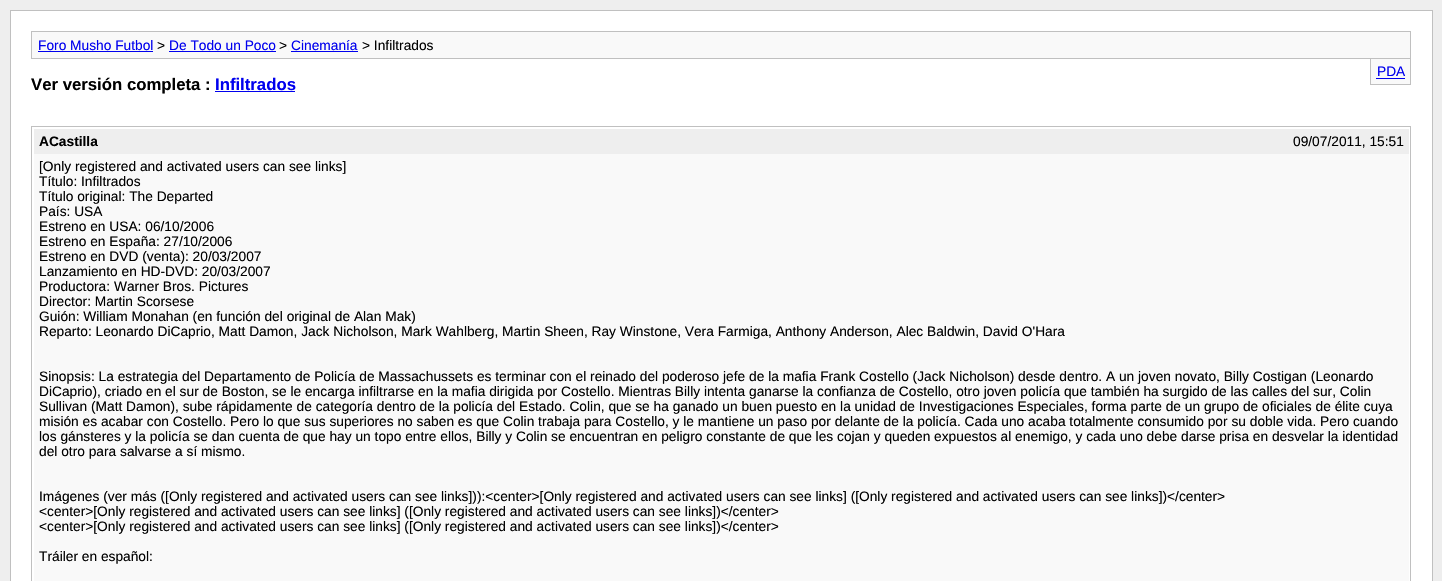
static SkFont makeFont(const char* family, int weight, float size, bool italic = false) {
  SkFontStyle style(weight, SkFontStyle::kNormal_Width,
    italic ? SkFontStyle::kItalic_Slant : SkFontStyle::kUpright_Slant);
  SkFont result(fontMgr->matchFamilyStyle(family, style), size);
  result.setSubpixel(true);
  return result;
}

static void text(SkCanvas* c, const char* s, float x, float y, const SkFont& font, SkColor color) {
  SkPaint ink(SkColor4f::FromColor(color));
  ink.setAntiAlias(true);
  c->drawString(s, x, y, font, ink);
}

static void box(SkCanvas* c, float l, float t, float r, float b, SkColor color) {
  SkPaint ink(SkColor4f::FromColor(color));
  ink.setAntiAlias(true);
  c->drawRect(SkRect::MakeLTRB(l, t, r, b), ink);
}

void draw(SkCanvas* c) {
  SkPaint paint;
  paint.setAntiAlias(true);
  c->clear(0xffeeeeee);
  paint.setColor(0xffffffff);
  c->drawRect(SkRect::MakeLTRB(10.5f, 10.5f, 1432.5f, 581.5f), paint);
  paint.setStyle(SkPaint::kStroke_Style);
  paint.setStrokeWidth(1);
  paint.setColor(0xffc0c0c0);
  c->drawRect(SkRect::MakeLTRB(10.5f, 10.5f, 1432.5f, 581.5f), paint);
  paint.setStyle(SkPaint::kFill_Style);
  paint.setColor(0xfff9f9f9);
  c->drawRect(SkRect::MakeLTRB(31.5f, 31.5f, 1410.5f, 58.5f), paint);
  paint.setStyle(SkPaint::kStroke_Style);
  paint.setColor(0xffc0c0c0);
  c->drawRect(SkRect::MakeLTRB(31.5f, 31.5f, 1410.5f, 58.5f), paint);
  SkFont face1 = makeFont("Liberation Sans", 400, 13.75f);
  text(c, "Foro Musho Futbol", 38, 50, face1, 0xff0000ee);
  box(c, 38, 51, 153, 52, 0xff0000ee);
  text(c, ">", 157, 50, face1, 0xff000000);
  text(c, "De Todo un Poco", 169, 50, face1, 0xff0000ee);
  box(c, 169, 51, 276, 52, 0xff0000ee);
  text(c, ">", 279, 50, face1, 0xff000000);
  text(c, "Cinemanía", 291, 50, face1, 0xff0000ee);
  box(c, 291, 51, 358, 52, 0xff0000ee);
  text(c, "> Infiltrados", 362, 50, face1, 0xff000000);
  box(c, 1371, 59, 1410, 84, 0xfff9f9f9);
  box(c, 1410, 59, 1411, 85, 0xffc0c0c0);
  box(c, 1370, 84, 1411, 85, 0xffc0c0c0);
  box(c, 1370, 59, 1371, 85, 0xffc0c0c0);
  text(c, "PDA", 1377, 76, face1, 0xff0000ee);
  box(c, 1376, 78, 1405, 79, 0xff0000ee);
  SkFont face2 = makeFont("Liberation Sans", 700, 16.75f);
  text(c, "Ver versión completa :", 31, 90, face2, 0xff000000);
  text(c, "Infiltrados", 215, 90, face2, 0xff0000ee);
  box(c, 215, 91, 295, 92, 0xff0000ee);
  c->drawRect(SkRect::MakeLTRB(31.5f, 126.5f, 1410.5f, 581.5f), paint);
  box(c, 34, 129, 1409, 154, 0xffeeeeee);
  SkFont face3 = makeFont("Liberation Sans", 700, 13.75f);
  text(c, "ACastilla", 39, 146, face3, 0xff000000);
  text(c, "09/07/2011, 15:51", 1293, 146, face1, 0xff000000);
  box(c, 34, 154, 1409, 581, 0xfff9f9f9);
  text(c, "[Only registered and activated users can see links]", 39, 171, face1, 0xff000000);
  text(c, "Título: Infiltrados", 39, 186, face1, 0xff000000);
  text(c, "Título original: The Departed", 39, 201, face1, 0xff000000);
  text(c, "País: USA", 39, 216, face1, 0xff000000);
  text(c, "Estreno en USA: 06/10/2006", 39, 231, face1, 0xff000000);
  text(c, "Estreno en España: 27/10/2006", 39, 246, face1, 0xff000000);
  text(c, "Estreno en DVD (venta): 20/03/2007", 39, 261, face1, 0xff000000);
  text(c, "Lanzamiento en HD-DVD: 20/03/2007", 39, 276, face1, 0xff000000);
  text(c, "Productora: Warner Bros. Pictures", 39, 291, face1, 0xff000000);
  text(c, "Director: Martin Scorsese", 39, 306, face1, 0xff000000);
  text(c, "Guión: William Monahan (en función del original de Alan Mak)", 39, 321, face1, 0xff000000);
  text(c, "Reparto: Leonardo DiCaprio, Matt Damon, Jack Nicholson, Mark Wahlberg, Martin Sheen, Ray Winstone, Vera Farmiga, Anthony Anderson, Alec Baldwin, David O'Hara", 39, 336, face1, 0xff000000);
  text(c, "Sinopsis: La estrategia del Departamento de Policía de Massachussets es terminar con el reinado del poderoso jefe de la mafia Frank Costello (Jack Nicholson) desde dentro. A un joven novato, Billy Costigan (Leonardo", 39, 381, face1, 0xff000000);
  text(c, "DiCaprio), criado en el sur de Boston, se le encarga infiltrarse en la mafia dirigida por Costello. Mientras Billy intenta ganarse la confianza de Costello, otro joven policía que también ha surgido de las calles del sur, Colin", 39, 396, face1, 0xff000000);
  text(c, "Sullivan (Matt Damon), sube rápidamente de categoría dentro de la policía del Estado. Colin, que se ha ganado un buen puesto en la unidad de Investigaciones Especiales, forma parte de un grupo de oficiales de élite cuya", 39, 411, face1, 0xff000000);
  text(c, "misión es acabar con Costello. Pero lo que sus superiores no saben es que Colin trabaja para Costello, y le mantiene un paso por delante de la policía. Cada uno acaba totalmente consumido por su doble vida. Pero cuando", 39, 426, face1, 0xff000000);
  text(c, "los gánsteres y la policía se dan cuenta de que hay un topo entre ellos, Billy y Colin se encuentran en peligro constante de que les cojan y queden expuestos al enemigo, y cada uno debe darse prisa en desvelar la identidad", 39, 441, face1, 0xff000000);
  text(c, "del otro para salvarse a sí mismo.", 39, 456, face1, 0xff000000);
  text(c, "Imágenes (ver más ([Only registered and activated users can see links])):<center>[Only registered and activated users can see links] ([Only registered and activated users can see links])</center>", 39, 501, face1, 0xff000000);
  text(c, "<center>[Only registered and activated users can see links] ([Only registered and activated users can see links])</center>", 39, 516, face1, 0xff000000);
  text(c, "<center>[Only registered and activated users can see links] ([Only registered and activated users can see links])</center>", 39, 531, face1, 0xff000000);
  text(c, "Tráiler en español:", 39, 561, face1, 0xff000000);
}
